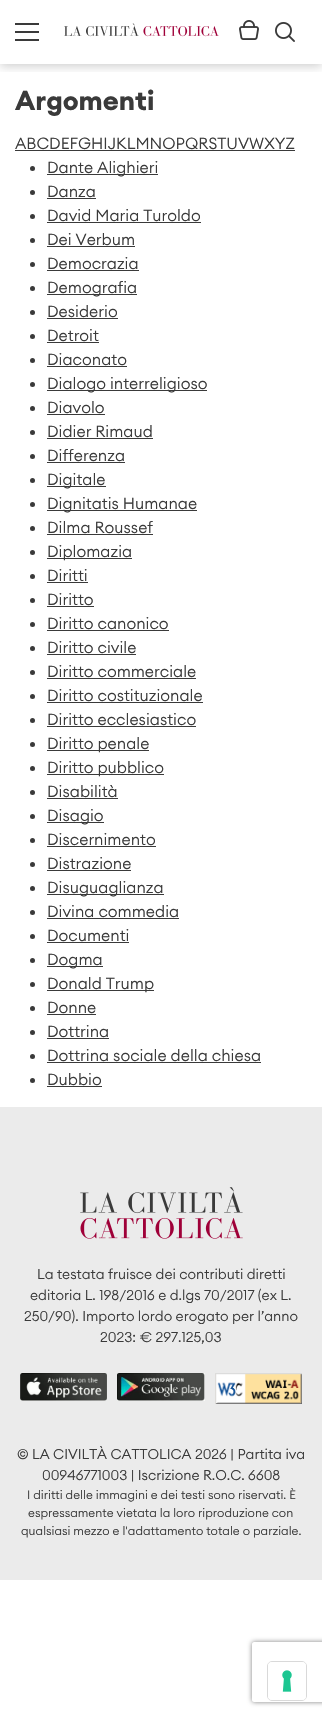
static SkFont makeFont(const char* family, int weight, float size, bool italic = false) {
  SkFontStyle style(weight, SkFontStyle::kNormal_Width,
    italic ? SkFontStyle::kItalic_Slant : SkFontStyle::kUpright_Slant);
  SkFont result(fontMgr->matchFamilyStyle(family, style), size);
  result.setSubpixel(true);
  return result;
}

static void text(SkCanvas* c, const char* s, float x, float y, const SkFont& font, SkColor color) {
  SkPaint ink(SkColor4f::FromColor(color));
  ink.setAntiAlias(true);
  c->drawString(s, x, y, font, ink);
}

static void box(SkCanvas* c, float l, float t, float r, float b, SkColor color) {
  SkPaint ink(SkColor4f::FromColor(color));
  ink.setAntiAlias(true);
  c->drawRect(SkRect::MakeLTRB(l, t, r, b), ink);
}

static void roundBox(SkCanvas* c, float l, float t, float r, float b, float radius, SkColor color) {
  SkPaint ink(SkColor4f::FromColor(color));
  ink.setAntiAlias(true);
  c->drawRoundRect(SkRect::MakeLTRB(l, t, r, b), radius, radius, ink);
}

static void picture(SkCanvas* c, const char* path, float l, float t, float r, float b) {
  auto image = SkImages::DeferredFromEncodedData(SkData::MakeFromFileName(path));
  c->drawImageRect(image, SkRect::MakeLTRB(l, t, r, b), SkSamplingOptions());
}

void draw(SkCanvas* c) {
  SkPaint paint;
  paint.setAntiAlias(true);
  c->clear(0xffffffff);
  c->save();
  c->clipRect(SkRect::MakeLTRB(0, 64, 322, 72));
  paint.setColor(0x33000000);
  paint.setMaskFilter(SkMaskFilter::MakeBlur(kNormal_SkBlurStyle, 5));
  c->drawRect(SkRect::MakeLTRB(0, 2, 322, 66), paint);
  paint.setMaskFilter(nullptr);
  c->restore();
  box(c, 15, 31, 39, 33, 0xff3a3a3a);
  box(c, 15, 23, 39, 25, 0xff3a3a3a);
  box(c, 15, 39, 39, 41, 0xff3a3a3a);
  picture(c, "img_01.png", 64, 23, 219, 37);
  picture(c, "img_02.png", 239, 20, 259, 40);
  picture(c, "img_03.png", 275, 22, 295, 42);
  SkFont face1 = makeFont("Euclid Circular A", 700, 27);
  text(c, "Argomenti", 15, 110, face1, 0xff3a3a3a);
  SkFont face2 = makeFont("Euclid Circular A", 300, 16);
  text(c, "ABCDEFGHIJKLMNOPQRSTUVWXYZ", 15, 149, face2, 0xff3a3a3a);
  box(c, 15, 150, 295, 151, 0xff3a3a3a);
  paint.setColor(0xff3a3a3a);
  c->drawCircle(32.5f, 168.5f, 2.5f, paint);
  box(c, 47, 174, 158, 175, 0xff3a3a3a);
  text(c, "Dante Alighieri", 47, 173, face2, 0xff3a3a3a);
  c->drawCircle(32.5f, 192.5f, 2.5f, paint);
  text(c, "Danza", 47, 197, face2, 0xff3a3a3a);
  box(c, 47, 198, 96, 199, 0xff3a3a3a);
  c->drawCircle(32.5f, 216.5f, 2.5f, paint);
  text(c, "David Maria Turoldo", 47, 221, face2, 0xff3a3a3a);
  box(c, 47, 222, 201, 223, 0xff3a3a3a);
  c->drawCircle(32.5f, 240.5f, 2.5f, paint);
  text(c, "Dei Verbum", 47, 245, face2, 0xff3a3a3a);
  box(c, 47, 246, 135, 247, 0xff3a3a3a);
  c->drawCircle(32.5f, 264.5f, 2.5f, paint);
  text(c, "Democrazia", 47, 269, face2, 0xff3a3a3a);
  box(c, 47, 270, 139, 271, 0xff3a3a3a);
  c->drawCircle(32.5f, 288.5f, 2.5f, paint);
  box(c, 47, 294, 137, 295, 0xff3a3a3a);
  text(c, "Demografia", 47, 293, face2, 0xff3a3a3a);
  c->drawCircle(32.5f, 312.5f, 2.5f, paint);
  text(c, "Desiderio", 47, 317, face2, 0xff3a3a3a);
  box(c, 47, 318, 118, 319, 0xff3a3a3a);
  c->drawCircle(32.5f, 336.5f, 2.5f, paint);
  text(c, "Detroit", 47, 341, face2, 0xff3a3a3a);
  box(c, 47, 342, 99, 343, 0xff3a3a3a);
  c->drawCircle(32.5f, 360.5f, 2.5f, paint);
  text(c, "Diaconato", 47, 365, face2, 0xff3a3a3a);
  box(c, 47, 366, 127, 367, 0xff3a3a3a);
  c->drawCircle(32.5f, 384.5f, 2.5f, paint);
  box(c, 47, 390, 207, 391, 0xff3a3a3a);
  text(c, "Dialogo interreligioso", 47, 389, face2, 0xff3a3a3a);
  c->drawCircle(32.5f, 408.5f, 2.5f, paint);
  text(c, "Diavolo", 47, 413, face2, 0xff3a3a3a);
  box(c, 47, 414, 105, 415, 0xff3a3a3a);
  c->drawCircle(32.5f, 432.5f, 2.5f, paint);
  text(c, "Didier Rimaud", 47, 437, face2, 0xff3a3a3a);
  box(c, 47, 438, 153, 439, 0xff3a3a3a);
  c->drawCircle(32.5f, 456.5f, 2.5f, paint);
  text(c, "Differenza", 47, 461, face2, 0xff3a3a3a);
  box(c, 47, 462, 125, 463, 0xff3a3a3a);
  c->drawCircle(32.5f, 480.5f, 2.5f, paint);
  box(c, 47, 486, 106, 487, 0xff3a3a3a);
  text(c, "Digitale", 47, 485, face2, 0xff3a3a3a);
  c->drawCircle(32.5f, 504.5f, 2.5f, paint);
  box(c, 47, 510, 197, 511, 0xff3a3a3a);
  text(c, "Dignitatis Humanae", 47, 509, face2, 0xff3a3a3a);
  c->drawCircle(32.5f, 528.5f, 2.5f, paint);
  text(c, "Dilma Roussef", 47, 533, face2, 0xff3a3a3a);
  box(c, 47, 534, 153, 535, 0xff3a3a3a);
  c->drawCircle(32.5f, 552.5f, 2.5f, paint);
  box(c, 47, 558, 132, 559, 0xff3a3a3a);
  text(c, "Diplomazia", 47, 557, face2, 0xff3a3a3a);
  c->drawCircle(32.5f, 576.5f, 2.5f, paint);
  text(c, "Diritti", 47, 581, face2, 0xff3a3a3a);
  box(c, 47, 582, 88, 583, 0xff3a3a3a);
  c->drawCircle(32.5f, 600.5f, 2.5f, paint);
  text(c, "Diritto", 47, 605, face2, 0xff3a3a3a);
  box(c, 47, 606, 94, 607, 0xff3a3a3a);
  c->drawCircle(32.5f, 624.5f, 2.5f, paint);
  text(c, "Diritto canonico", 47, 629, face2, 0xff3a3a3a);
  box(c, 47, 630, 169, 631, 0xff3a3a3a);
  c->drawCircle(32.5f, 648.5f, 2.5f, paint);
  text(c, "Diritto civile", 47, 653, face2, 0xff3a3a3a);
  box(c, 47, 654, 136, 655, 0xff3a3a3a);
  c->drawCircle(32.5f, 672.5f, 2.5f, paint);
  text(c, "Diritto commerciale", 47, 677, face2, 0xff3a3a3a);
  box(c, 47, 678, 196, 679, 0xff3a3a3a);
  c->drawCircle(32.5f, 696.5f, 2.5f, paint);
  text(c, "Diritto costituzionale", 47, 701, face2, 0xff3a3a3a);
  box(c, 47, 702, 203, 703, 0xff3a3a3a);
  c->drawCircle(32.5f, 720.5f, 2.5f, paint);
  text(c, "Diritto ecclesiastico", 47, 725, face2, 0xff3a3a3a);
  box(c, 47, 726, 196, 727, 0xff3a3a3a);
  c->drawCircle(32.5f, 744.5f, 2.5f, paint);
  box(c, 47, 750, 149, 751, 0xff3a3a3a);
  text(c, "Diritto penale", 47, 749, face2, 0xff3a3a3a);
  c->drawCircle(32.5f, 768.5f, 2.5f, paint);
  box(c, 47, 774, 164, 775, 0xff3a3a3a);
  text(c, "Diritto pubblico", 47, 773, face2, 0xff3a3a3a);
  c->drawCircle(32.5f, 792.5f, 2.5f, paint);
  text(c, "Disabilità", 47, 797, face2, 0xff3a3a3a);
  box(c, 47, 798, 118, 799, 0xff3a3a3a);
  c->drawCircle(32.5f, 816.5f, 2.5f, paint);
  box(c, 47, 822, 104, 823, 0xff3a3a3a);
  text(c, "Disagio", 47, 821, face2, 0xff3a3a3a);
  c->drawCircle(32.5f, 840.5f, 2.5f, paint);
  text(c, "Discernimento", 47, 845, face2, 0xff3a3a3a);
  box(c, 47, 846, 156, 847, 0xff3a3a3a);
  c->drawCircle(32.5f, 864.5f, 2.5f, paint);
  text(c, "Distrazione", 47, 869, face2, 0xff3a3a3a);
  box(c, 47, 870, 131, 871, 0xff3a3a3a);
  c->drawCircle(32.5f, 888.5f, 2.5f, paint);
  box(c, 47, 894, 164, 895, 0xff3a3a3a);
  text(c, "Disuguaglianza", 47, 893, face2, 0xff3a3a3a);
  c->drawCircle(32.5f, 912.5f, 2.5f, paint);
  text(c, "Divina commedia", 47, 917, face2, 0xff3a3a3a);
  box(c, 47, 918, 179, 919, 0xff3a3a3a);
  c->drawCircle(32.5f, 936.5f, 2.5f, paint);
  text(c, "Documenti", 47, 941, face2, 0xff3a3a3a);
  box(c, 47, 942, 129, 943, 0xff3a3a3a);
  c->drawCircle(32.5f, 960.5f, 2.5f, paint);
  box(c, 47, 966, 103, 967, 0xff3a3a3a);
  text(c, "Dogma", 47, 965, face2, 0xff3a3a3a);
  c->drawCircle(32.5f, 984.5f, 2.5f, paint);
  box(c, 47, 990, 154, 991, 0xff3a3a3a);
  text(c, "Donald Trump", 47, 989, face2, 0xff3a3a3a);
  c->drawCircle(32.5f, 1008.5f, 2.5f, paint);
  text(c, "Donne", 47, 1013, face2, 0xff3a3a3a);
  box(c, 47, 1014, 96, 1015, 0xff3a3a3a);
  c->drawCircle(32.5f, 1032.5f, 2.5f, paint);
  text(c, "Dottrina", 47, 1037, face2, 0xff3a3a3a);
  box(c, 47, 1038, 109, 1039, 0xff3a3a3a);
  c->drawCircle(32.5f, 1056.5f, 2.5f, paint);
  text(c, "Dottrina sociale della chiesa", 47, 1061, face2, 0xff3a3a3a);
  box(c, 47, 1062, 261, 1063, 0xff3a3a3a);
  c->drawCircle(32.5f, 1080.5f, 2.5f, paint);
  text(c, "Dubbio", 47, 1085, face2, 0xff3a3a3a);
  box(c, 47, 1086, 102, 1087, 0xff3a3a3a);
  box(c, 0, 1107, 322, 1580, 0xffebebeb);
  picture(c, "img_04.png", 80, 1187, 243, 1239);
  SkFont face3 = makeFont("Euclid Circular A", 300, 14);
  text(c, "La testata fruisce dei contributi diretti", 37, 1279, face3, 0xff3a3a3a);
  text(c, "editoria L. 198/2016 e d.lgs 70/2017 (ex L.", 30, 1300, face3, 0xff3a3a3a);
  text(c, "250/90). Importo lordo erogato per l’anno", 24, 1321, face3, 0xff3a3a3a);
  text(c, "2023: € 297.125,03", 100, 1342, face3, 0xff3a3a3a);
  picture(c, "img_05.png", 20, 1373, 107, 1401);
  picture(c, "img_06.png", 117, 1373, 205, 1401);
  picture(c, "img_07.png", 215, 1373, 302, 1404);
  text(c, "© LA CIVILTÀ CATTOLICA 2026 | Partita iva", 17, 1459, face3, 0xff3a3a3a);
  text(c, "00946771003 | Iscrizione R.O.C. 6608", 42, 1480, face3, 0xff3a3a3a);
  SkFont face4 = makeFont("Euclid Circular A", 300, 12);
  text(c, "I diritti delle immagini e dei testi sono riservati. È", 27, 1499, face4, 0xff3a3a3a);
  text(c, "espressamente vietata la loro riproduzione con", 28, 1517, face4, 0xff3a3a3a);
  text(c, "qualsiasi mezzo e l'adattamento totale o parziale.", 21, 1535, face4, 0xff3a3a3a);
  c->save();
  c->clipPath(SkPathBuilder(SkPathFillType::kEvenOdd).moveTo(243, 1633).lineTo(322, 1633).lineTo(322, 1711).lineTo(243, 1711).close().moveTo(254, 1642).lineTo(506, 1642).cubicTo(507, 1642, 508, 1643, 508, 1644).lineTo(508, 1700).cubicTo(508, 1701, 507, 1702, 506, 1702).lineTo(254, 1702).cubicTo(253, 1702, 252, 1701, 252, 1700).lineTo(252, 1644).cubicTo(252, 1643, 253, 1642, 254, 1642).close().detach(), true);
  paint.setColor(0xff808080);
  paint.setMaskFilter(SkMaskFilter::MakeBlur(kNormal_SkBlurStyle, 2.5f));
  c->drawRoundRect(SkRect::MakeLTRB(252, 1642, 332, 1702), 2, 2, paint);
  paint.setMaskFilter(nullptr);
  c->restore();
  paint.setStyle(SkPaint::kStroke_Style);
  paint.setStrokeWidth(1);
  paint.setColor(0xffd9d9d9);
  c->drawRoundRect(SkRect::MakeLTRB(267.5f, 1661.5f, 306.5f, 1700.5f), 4.5f, 4.5f, paint);
  roundBox(c, 268, 1662, 306, 1700, 4, 0xffffffff);
  picture(c, "img_08.png", 282, 1670, 292, 1692);
}
